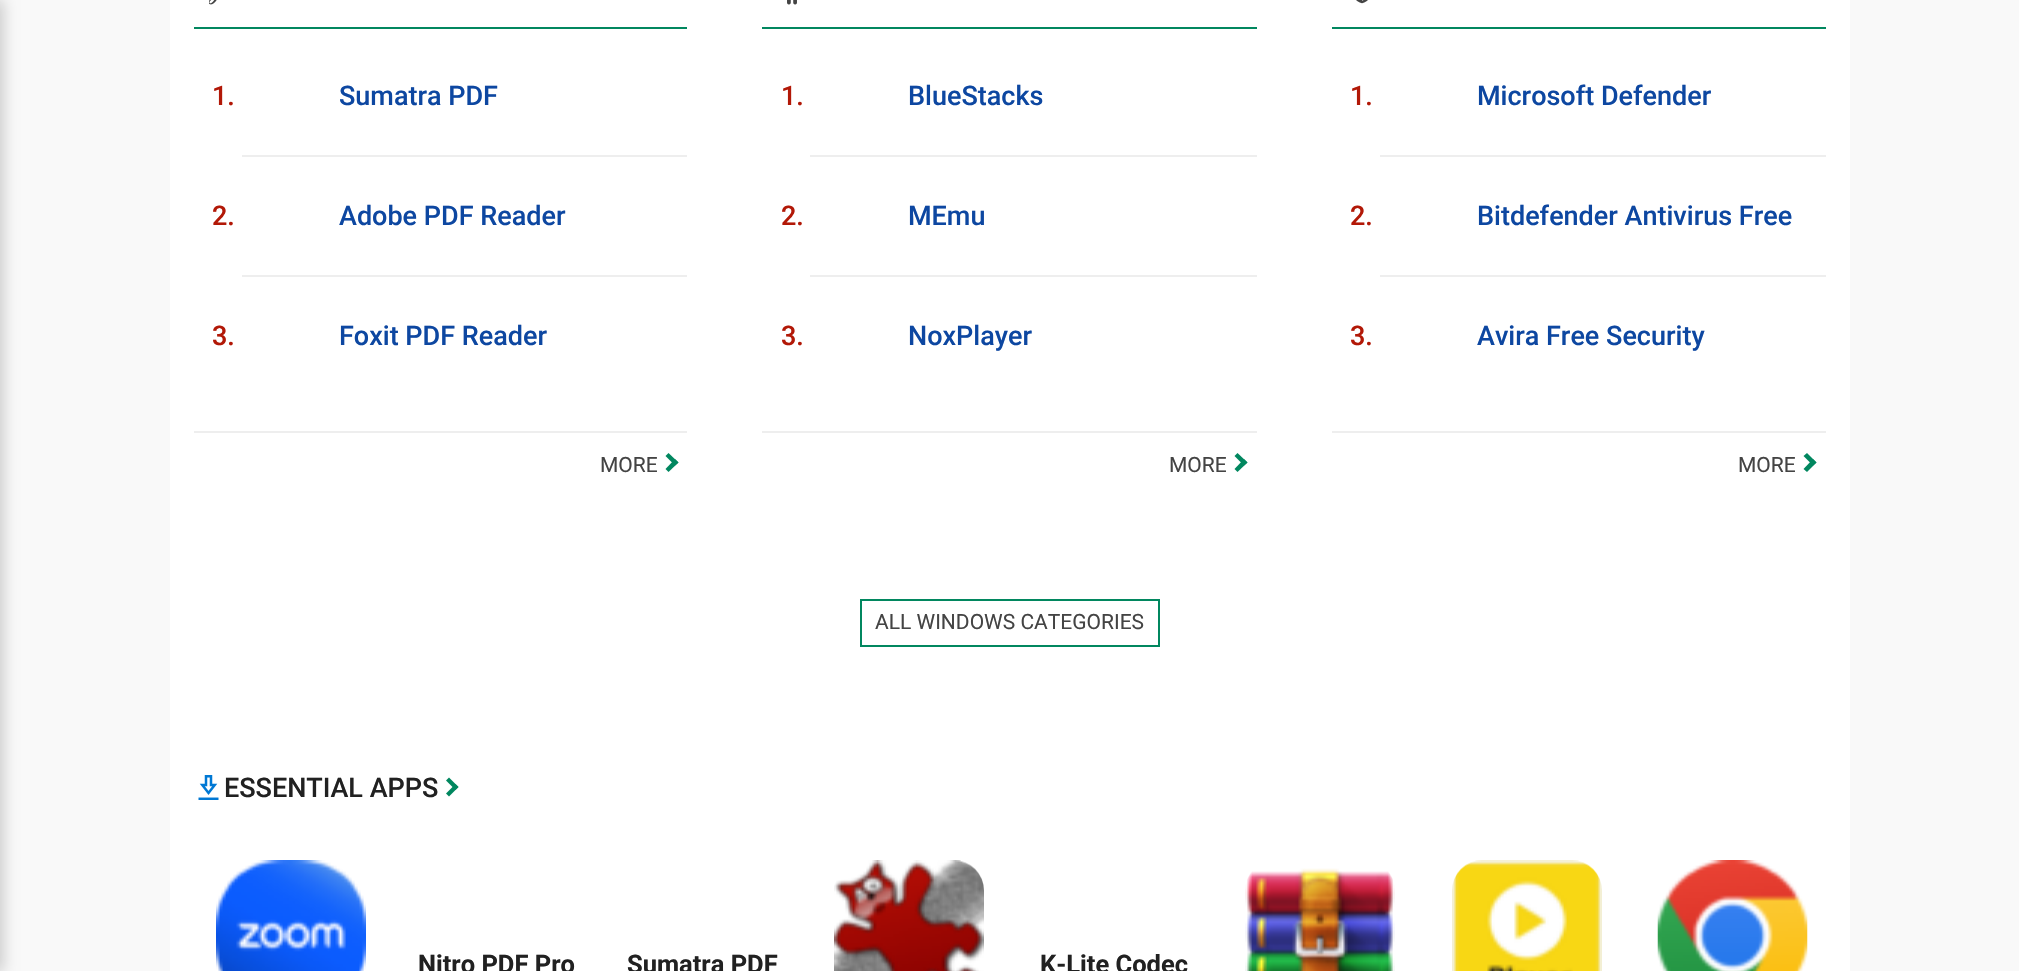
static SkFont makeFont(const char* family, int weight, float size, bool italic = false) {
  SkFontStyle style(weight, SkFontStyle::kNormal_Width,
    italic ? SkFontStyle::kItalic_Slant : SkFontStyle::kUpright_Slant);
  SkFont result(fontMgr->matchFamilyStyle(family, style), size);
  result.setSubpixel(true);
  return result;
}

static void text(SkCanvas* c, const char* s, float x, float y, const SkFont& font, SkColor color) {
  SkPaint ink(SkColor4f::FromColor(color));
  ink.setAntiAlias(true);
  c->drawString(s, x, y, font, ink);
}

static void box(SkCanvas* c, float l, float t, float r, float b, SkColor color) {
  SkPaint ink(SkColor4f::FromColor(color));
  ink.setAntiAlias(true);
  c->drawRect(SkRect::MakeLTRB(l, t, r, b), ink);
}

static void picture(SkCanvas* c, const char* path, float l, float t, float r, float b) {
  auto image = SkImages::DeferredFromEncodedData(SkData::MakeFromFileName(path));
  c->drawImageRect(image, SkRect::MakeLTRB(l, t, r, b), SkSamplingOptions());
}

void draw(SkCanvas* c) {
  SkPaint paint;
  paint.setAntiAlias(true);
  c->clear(0xfff9f9f9);
  paint.setColor(0x33000000);
  paint.setMaskFilter(SkMaskFilter::MakeBlur(kNormal_SkBlurStyle, 7.5f));
  c->drawRect(SkRect::MakeLTRB(-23, 0, 3, 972), paint);
  paint.setMaskFilter(nullptr);
  box(c, 170, 0, 1850, 971, 0xffffffff);
  box(c, 194, 27, 687, 29, 0xff01875f);
  picture(c, "img_01.png", 209, 0, 217, 5);
  box(c, 242, 155, 687, 157, 0xffeeeeee);
  SkFont face1 = makeFont("Roboto", 500, 27);
  text(c, "1.", 212, 105, face1, 0xffb21807);
  text(c, "Sumatra PDF", 339, 105, face1, 0xff0d47a1);
  box(c, 242, 275, 687, 277, 0xffeeeeee);
  text(c, "2.", 212, 225, face1, 0xffb21807);
  text(c, "Adobe PDF Reader", 339, 225, face1, 0xff0d47a1);
  text(c, "3.", 212, 345, face1, 0xffb21807);
  text(c, "Foxit PDF Reader", 339, 345, face1, 0xff0d47a1);
  box(c, 194, 431, 687, 433, 0xffeeeeee);
  SkFont face2 = makeFont("Roboto", 400, 21);
  text(c, "MORE", 600, 472, face2, 0xff444444);
  paint.setColor(0xff01875f);
  c->drawPath(SkPathBuilder().moveTo(665.5f, 456).lineTo(668.5f, 453).lineTo(678.5f, 462.5f).lineTo(675, 465.5f).close().detach(), paint);
  c->drawPath(SkPathBuilder().moveTo(665.5f, 469).lineTo(675, 459).lineTo(678.5f, 462.5f).lineTo(668.5f, 472).close().detach(), paint);
  box(c, 762, 27, 1257, 29, 0xff01875f);
  picture(c, "img_02.png", 787, 0, 797, 5);
  box(c, 810, 155, 1257, 157, 0xffeeeeee);
  text(c, "1.", 781, 105, face1, 0xffb21807);
  text(c, "BlueStacks", 908, 105, face1, 0xff0d47a1);
  box(c, 810, 275, 1257, 277, 0xffeeeeee);
  text(c, "2.", 781, 225, face1, 0xffb21807);
  text(c, "MEmu", 908, 225, face1, 0xff0d47a1);
  text(c, "3.", 781, 345, face1, 0xffb21807);
  text(c, "NoxPlayer", 908, 345, face1, 0xff0d47a1);
  box(c, 762, 431, 1257, 433, 0xffeeeeee);
  text(c, "MORE", 1169, 472, face2, 0xff444444);
  c->drawPath(SkPathBuilder().moveTo(1234.5f, 456).lineTo(1237.5f, 453).lineTo(1247.5f, 462.5f).lineTo(1244, 465.5f).close().detach(), paint);
  c->drawPath(SkPathBuilder().moveTo(1234.5f, 469).lineTo(1244, 459).lineTo(1247.5f, 462.5f).lineTo(1237.5f, 472).close().detach(), paint);
  box(c, 1332, 27, 1826, 29, 0xff01875f);
  picture(c, "img_03.png", 1356, 0, 1368, 4);
  box(c, 1380, 155, 1826, 157, 0xffeeeeee);
  text(c, "1.", 1350, 105, face1, 0xffb21807);
  text(c, "Microsoft Defender", 1477, 105, face1, 0xff0d47a1);
  box(c, 1380, 275, 1826, 277, 0xffeeeeee);
  text(c, "2.", 1350, 225, face1, 0xffb21807);
  text(c, "Bitdefender Antivirus Free", 1477, 225, face1, 0xff0d47a1);
  text(c, "3.", 1350, 345, face1, 0xffb21807);
  text(c, "Avira Free Security", 1477, 345, face1, 0xff0d47a1);
  box(c, 1332, 431, 1826, 433, 0xffeeeeee);
  text(c, "MORE", 1738, 472, face2, 0xff444444);
  c->drawPath(SkPathBuilder().moveTo(1803.5f, 456).lineTo(1807, 453).lineTo(1816.5f, 462.5f).lineTo(1813, 465.5f).close().detach(), paint);
  c->drawPath(SkPathBuilder().moveTo(1803.5f, 469).lineTo(1813, 459).lineTo(1816.5f, 462.5f).lineTo(1807, 472).close().detach(), paint);
  paint.setStyle(SkPaint::kStroke_Style);
  paint.setStrokeWidth(2);
  c->drawRect(SkRect::MakeLTRB(861, 600, 1159, 646), paint);
  text(c, "ALL WINDOWS CATEGORIES", 875, 629, face2, 0xff444444);
  picture(c, "img_04.png", 198, 775, 219, 800);
  text(c, "ESSENTIAL APPS", 224, 797, face1, 0xff212121);
  paint.setStyle(SkPaint::kFill_Style);
  c->drawPath(SkPathBuilder().moveTo(446, 780.5f).lineTo(449, 777.5f).lineTo(458.5f, 787).lineTo(455.5f, 790).close().detach(), paint);
  c->drawPath(SkPathBuilder().moveTo(446, 793.5f).lineTo(455.5f, 784).lineTo(458.5f, 787).lineTo(449, 796.5f).close().detach(), paint);
  picture(c, "img_05.png", 216, 860, 366, 971);
  SkFont face3 = makeFont("Roboto", 700, 25.5f);
  text(c, "Nitro PDF Pro", 418, 973, face3, 0xff212121);
  text(c, "Sumatra PDF", 627, 973, face3, 0xff212121);
  picture(c, "img_06.png", 834, 860, 984, 971);
  text(c, "K-Lite Codec", 1040, 973, face3, 0xff212121);
  picture(c, "img_07.png", 1245, 868, 1395, 971);
  picture(c, "img_08.png", 1452, 860, 1602, 971);
  picture(c, "img_09.png", 1657, 860, 1808, 971);
}
